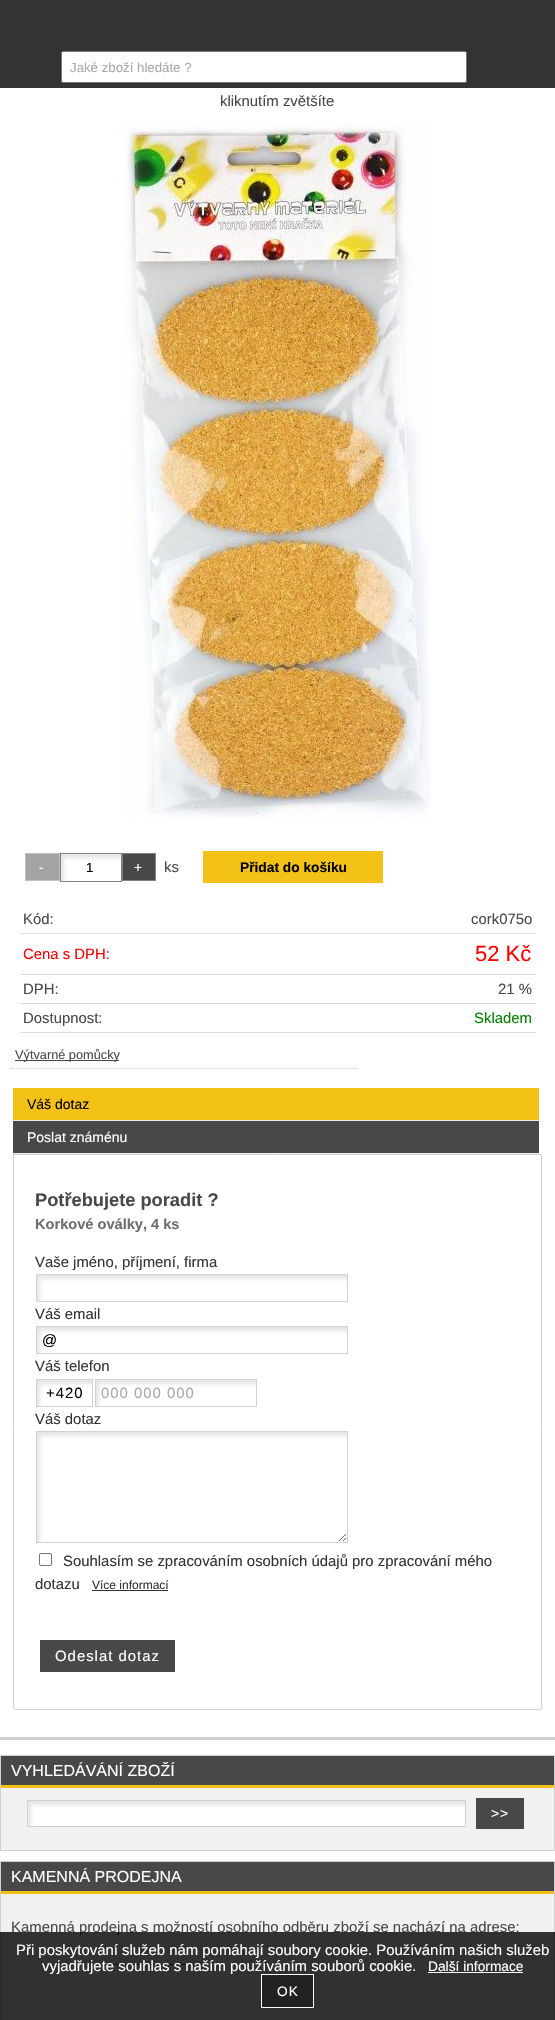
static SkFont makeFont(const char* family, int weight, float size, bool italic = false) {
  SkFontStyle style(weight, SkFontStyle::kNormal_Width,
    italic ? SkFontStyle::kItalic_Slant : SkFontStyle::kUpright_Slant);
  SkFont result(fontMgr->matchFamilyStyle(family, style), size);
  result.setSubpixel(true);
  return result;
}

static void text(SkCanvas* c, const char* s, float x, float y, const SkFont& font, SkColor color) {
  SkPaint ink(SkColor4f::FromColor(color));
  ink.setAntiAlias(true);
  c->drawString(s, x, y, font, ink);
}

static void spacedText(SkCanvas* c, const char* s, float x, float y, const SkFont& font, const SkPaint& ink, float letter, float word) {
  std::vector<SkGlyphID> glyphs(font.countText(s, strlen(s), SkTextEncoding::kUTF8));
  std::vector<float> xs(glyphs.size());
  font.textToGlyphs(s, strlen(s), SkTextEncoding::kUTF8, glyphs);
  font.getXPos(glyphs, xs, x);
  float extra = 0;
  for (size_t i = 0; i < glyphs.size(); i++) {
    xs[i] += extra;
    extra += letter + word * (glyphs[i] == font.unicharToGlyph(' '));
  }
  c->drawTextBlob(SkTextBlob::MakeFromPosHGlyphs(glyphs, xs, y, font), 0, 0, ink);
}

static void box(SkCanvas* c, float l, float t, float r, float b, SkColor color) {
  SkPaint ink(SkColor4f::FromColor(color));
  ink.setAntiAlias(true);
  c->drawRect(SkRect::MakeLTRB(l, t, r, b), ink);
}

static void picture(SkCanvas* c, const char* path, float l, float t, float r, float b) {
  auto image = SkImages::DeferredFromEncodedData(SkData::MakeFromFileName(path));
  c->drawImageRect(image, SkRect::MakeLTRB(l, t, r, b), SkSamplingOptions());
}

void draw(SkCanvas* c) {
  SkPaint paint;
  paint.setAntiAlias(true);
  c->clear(0xffffffff);
  box(c, 0, 0, 555, 88, 0xff333333);
  paint.setColor(0xffffffff);
  c->drawRoundRect(SkRect::MakeLTRB(61.5f, 51.5f, 466.5f, 82.5f), 1.5f, 1.5f, paint);
  paint.setStyle(SkPaint::kStroke_Style);
  paint.setStrokeWidth(1);
  paint.setColor(0xff767676);
  c->drawRoundRect(SkRect::MakeLTRB(61.5f, 51.5f, 466.5f, 82.5f), 1.5f, 1.5f, paint);
  SkFont face1 = makeFont("Liberation Sans", 400, 13.25f);
  text(c, "Jaké zboží hledáte ?", 70, 72, face1, 0xffaaaaaa);
  SkFont face2 = makeFont("Liberation Sans", 400, 14.9f);
  text(c, "kliknutím zvětšíte", 220, 106, face2, 0xff484848);
  picture(c, "img_01.png", 125, 123, 431, 819);
  paint.setStyle(SkPaint::kFill_Style);
  paint.setColor(0xffa4a4a4);
  c->drawRect(SkRect::MakeLTRB(25.5f, 853.5f, 59.5f, 880.5f), paint);
  paint.setStyle(SkPaint::kStroke_Style);
  paint.setColor(0xffc0c0c0);
  c->drawRect(SkRect::MakeLTRB(25.5f, 853.5f, 59.5f, 880.5f), paint);
  SkFont face3 = makeFont("Liberation Sans", 400, 13.75f);
  paint.setStyle(SkPaint::kFill_Style);
  paint.setColor(0xffffffff);
  spacedText(c, "-", 39, 872, face3, paint, 1, 0);
  picture(c, "img_02.png", 61, 854, 121, 881);
  paint.setStyle(SkPaint::kStroke_Style);
  paint.setColor(0xff808080);
  c->drawRect(SkRect::MakeLTRB(60.5f, 853.5f, 121.5f, 881.5f), paint);
  paint.setStyle(SkPaint::kFill_Style);
  paint.setColor(0xff000000);
  spacedText(c, "1", 86, 872, face1, paint, 1, 0);
  paint.setColor(0xff484848);
  c->drawRect(SkRect::MakeLTRB(122.5f, 853.5f, 155.5f, 880.5f), paint);
  paint.setStyle(SkPaint::kStroke_Style);
  paint.setColor(0xff808080);
  c->drawRect(SkRect::MakeLTRB(122.5f, 853.5f, 155.5f, 880.5f), paint);
  paint.setStyle(SkPaint::kFill_Style);
  paint.setColor(0xffffffff);
  spacedText(c, "+", 134, 872, face3, paint, 1, 0);
  text(c, "ks", 164, 872, face2, 0xff484848);
  box(c, 203, 851, 383, 883, 0xfff4c216);
  SkFont face4 = makeFont("Liberation Sans", 700, 13.75f);
  text(c, "Přidat do košíku", 240, 872, face4, 0xff000000);
  text(c, "Kód:", 23, 924, face2, 0xff484848);
  box(c, 20, 933, 536, 934, 0xffdddddd);
  text(c, "cork075o", 471, 924, face2, 0xff484848);
  text(c, "Cena s DPH:", 23, 959, face2, 0xffff0000);
  box(c, 20, 974, 536, 975, 0xffdddddd);
  SkFont face5 = makeFont("Liberation Sans", 400, 22);
  text(c, "52 Kč", 475, 961, face5, 0xffff0000);
  text(c, "DPH:", 23, 994, face2, 0xff484848);
  box(c, 20, 1003, 536, 1004, 0xffdddddd);
  text(c, "21 %", 498, 994, face2, 0xff484848);
  text(c, "Dostupnost:", 23, 1023, face2, 0xff484848);
  box(c, 20, 1032, 536, 1033, 0xffdddddd);
  text(c, "Skladem", 474, 1023, face2, 0xff008000);
  paint.setStyle(SkPaint::kStroke_Style);
  paint.setColor(0xffcccccc);
  paint.setPathEffect(SkDashPathEffect::Make({{1, 1}}, 0));
  c->drawPath(SkPathBuilder().moveTo(10, 1068.5f).lineTo(357, 1068.5f).detach(), paint);
  paint.setPathEffect(nullptr);
  box(c, 15, 1060, 119, 1061, 0xff484848);
  SkFont face6 = makeFont("Liberation Sans", 400, 12.75f);
  text(c, "Výtvarné pomůcky", 15, 1059, face6, 0xff484848);
  box(c, 13, 1088, 539, 1120, 0xfff4c216);
  box(c, 13, 1120, 539, 1121, 0xffeeeeee);
  SkFont face7 = makeFont("Liberation Sans", 400, 14);
  text(c, "Váš dotaz", 27, 1109, face7, 0xff000000);
  box(c, 13, 1121, 539, 1153, 0xff484848);
  box(c, 13, 1153, 539, 1154, 0xffeeeeee);
  text(c, "Poslat známénu", 27, 1142, face7, 0xffffffff);
  paint.setColor(0xffd2d0d0);
  c->drawPath(SkPathBuilder().moveTo(13.5f, 1154.5f).lineTo(541.5f, 1154.5f).lineTo(541.5f, 1707).cubicTo(541.5f, 1708.5f, 540.5f, 1709.5f, 539, 1709.5f).lineTo(16, 1709.5f).cubicTo(14.5f, 1709.5f, 13.5f, 1708.5f, 13.5f, 1707).close().detach(), paint);
  SkFont face8 = makeFont("Liberation Sans", 700, 18.25f);
  text(c, "Potřebujete poradit ?", 35, 1206, face8, 0xff484848);
  SkFont face9 = makeFont("Liberation Sans", 700, 14.6f);
  text(c, "Korkové oválky, 4 ks", 35, 1229, face9, 0xff6d6d6d);
  text(c, "Vaše jméno, příjmení, firma", 35, 1267, face2, 0xff333333);
  picture(c, "img_03.png", 37, 1275, 347, 1301);
  c->drawRect(SkRect::MakeLTRB(36.5f, 1274.5f, 347.5f, 1301.5f), paint);
  text(c, "Váš email", 35, 1319, face2, 0xff333333);
  picture(c, "img_03.png", 37, 1327, 347, 1353);
  c->drawRect(SkRect::MakeLTRB(36.5f, 1326.5f, 347.5f, 1353.5f), paint);
  paint.setStyle(SkPaint::kFill_Style);
  paint.setColor(0xff000000);
  spacedText(c, "@", 42, 1345, face2, paint, 1, 0);
  text(c, "Váš telefon", 35, 1371, face2, 0xff333333);
  picture(c, "img_04.png", 37, 1380, 92, 1406);
  paint.setStyle(SkPaint::kStroke_Style);
  paint.setColor(0xffd2d0d0);
  c->drawRect(SkRect::MakeLTRB(36.5f, 1379.5f, 92.5f, 1406.5f), paint);
  paint.setStyle(SkPaint::kFill_Style);
  paint.setColor(0xff000000);
  spacedText(c, "+420", 46, 1398, face2, paint, 1, 0);
  picture(c, "img_05.png", 96, 1380, 256, 1406);
  paint.setStyle(SkPaint::kStroke_Style);
  paint.setColor(0xffd2d0d0);
  c->drawRect(SkRect::MakeLTRB(95.5f, 1379.5f, 256.5f, 1406.5f), paint);
  paint.setStyle(SkPaint::kFill_Style);
  paint.setColor(0xffaaaaaa);
  spacedText(c, "000 000 000", 101, 1398, face2, paint, 1, 0);
  text(c, "Váš dotaz", 35, 1424, face2, 0xff333333);
  picture(c, "img_06.png", 37, 1432, 347, 1542);
  paint.setStyle(SkPaint::kStroke_Style);
  paint.setColor(0xffd2d0d0);
  c->drawRect(SkRect::MakeLTRB(36.5f, 1431.5f, 347.5f, 1542.5f), paint);
  paint.setColor(0xff767676);
  c->drawRoundRect(SkRect::MakeLTRB(39.5f, 1553.5f, 51.5f, 1565.5f), 1.5f, 1.5f, paint);
  text(c, "Souhlasím se zpracováním osobních údajů pro zpracování mého", 63, 1566, face2, 0xff333333);
  text(c, "dotazu", 35, 1589, face2, 0xff333333);
  SkFont face10 = makeFont("Liberation Sans", 400, 12);
  text(c, "Více informací", 92, 1589, face10, 0xff333333);
  box(c, 92, 1590, 168, 1591, 0xff333333);
  box(c, 40, 1640, 175, 1672, 0xff484848);
  paint.setStyle(SkPaint::kFill_Style);
  paint.setColor(0xffffffff);
  spacedText(c, "Odeslat dotaz", 55, 1661, face2, paint, 1, 0);
  box(c, 0, 1737, 555, 1740, 0xffd2d0d0);
  paint.setStyle(SkPaint::kStroke_Style);
  paint.setColor(0xffd2d0d0);
  c->drawRect(SkRect::MakeLTRB(0.5f, 1755.5f, 554.5f, 1850.5f), paint);
  box(c, 1, 1756, 554, 1785, 0xff484848);
  box(c, 1, 1785, 554, 1788, 0xfff4c216);
  SkFont face11 = makeFont("Liberation Sans", 400, 16);
  text(c, "VYHLEDÁVÁNÍ ZBOŽÍ", 11, 1776, face11, 0xffffffff);
  box(c, 1, 1788, 554, 1850, 0xfff1f1f1);
  picture(c, "img_07.png", 28, 1801, 465, 1826);
  c->drawRect(SkRect::MakeLTRB(27.5f, 1800.5f, 465.5f, 1826.5f), paint);
  box(c, 476, 1798, 524, 1829, 0xff484848);
  paint.setStyle(SkPaint::kFill_Style);
  paint.setColor(0xffffffff);
  spacedText(c, ">>", 491, 1818, face3, paint, 1, 0);
  paint.setStyle(SkPaint::kStroke_Style);
  paint.setColor(0xffd2d0d0);
  c->drawRect(SkRect::MakeLTRB(0.5f, 1861.5f, 554.5f, 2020.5f), paint);
  box(c, 1, 1862, 554, 1891, 0xff484848);
  box(c, 1, 1891, 554, 1894, 0xfff4c216);
  text(c, "KAMENNÁ PRODEJNA", 11, 1882, face11, 0xffffffff);
  box(c, 1, 1894, 554, 2020, 0xfff1f1f1);
  text(c, "Kamenná prodejna s možností osobního odběru zboží se nachází na adrese:", 11, 1932, face2, 0xff484848);
  box(c, 110, 1964, 205, 1965, 0xff484848);
  box(c, 0, 1932, 555, 2020, 0xcc000000);
  text(c, "Při poskytování služeb nám pomáhají soubory cookie. Používáním našich služeb", 16, 1955, face2, 0xffffffff);
  text(c, "vyjadřujete souhlas s naším používáním souborů cookie.", 42, 1971, face2, 0xffffffff);
  text(c, "Další informace", 428, 1971, face3, 0xffffffff);
  box(c, 428, 1972, 523, 1973, 0xffffffff);
  paint.setStyle(SkPaint::kFill_Style);
  paint.setColor(0xff222222);
  c->drawRect(SkRect::MakeLTRB(261.5f, 1974.5f, 313.5f, 2007.5f), paint);
  paint.setStyle(SkPaint::kStroke_Style);
  paint.setColor(0xffffffff);
  c->drawRect(SkRect::MakeLTRB(261.5f, 1974.5f, 313.5f, 2007.5f), paint);
  paint.setStyle(SkPaint::kFill_Style);
  spacedText(c, "OK", 277, 1996, face3, paint, 1, 0);
}
